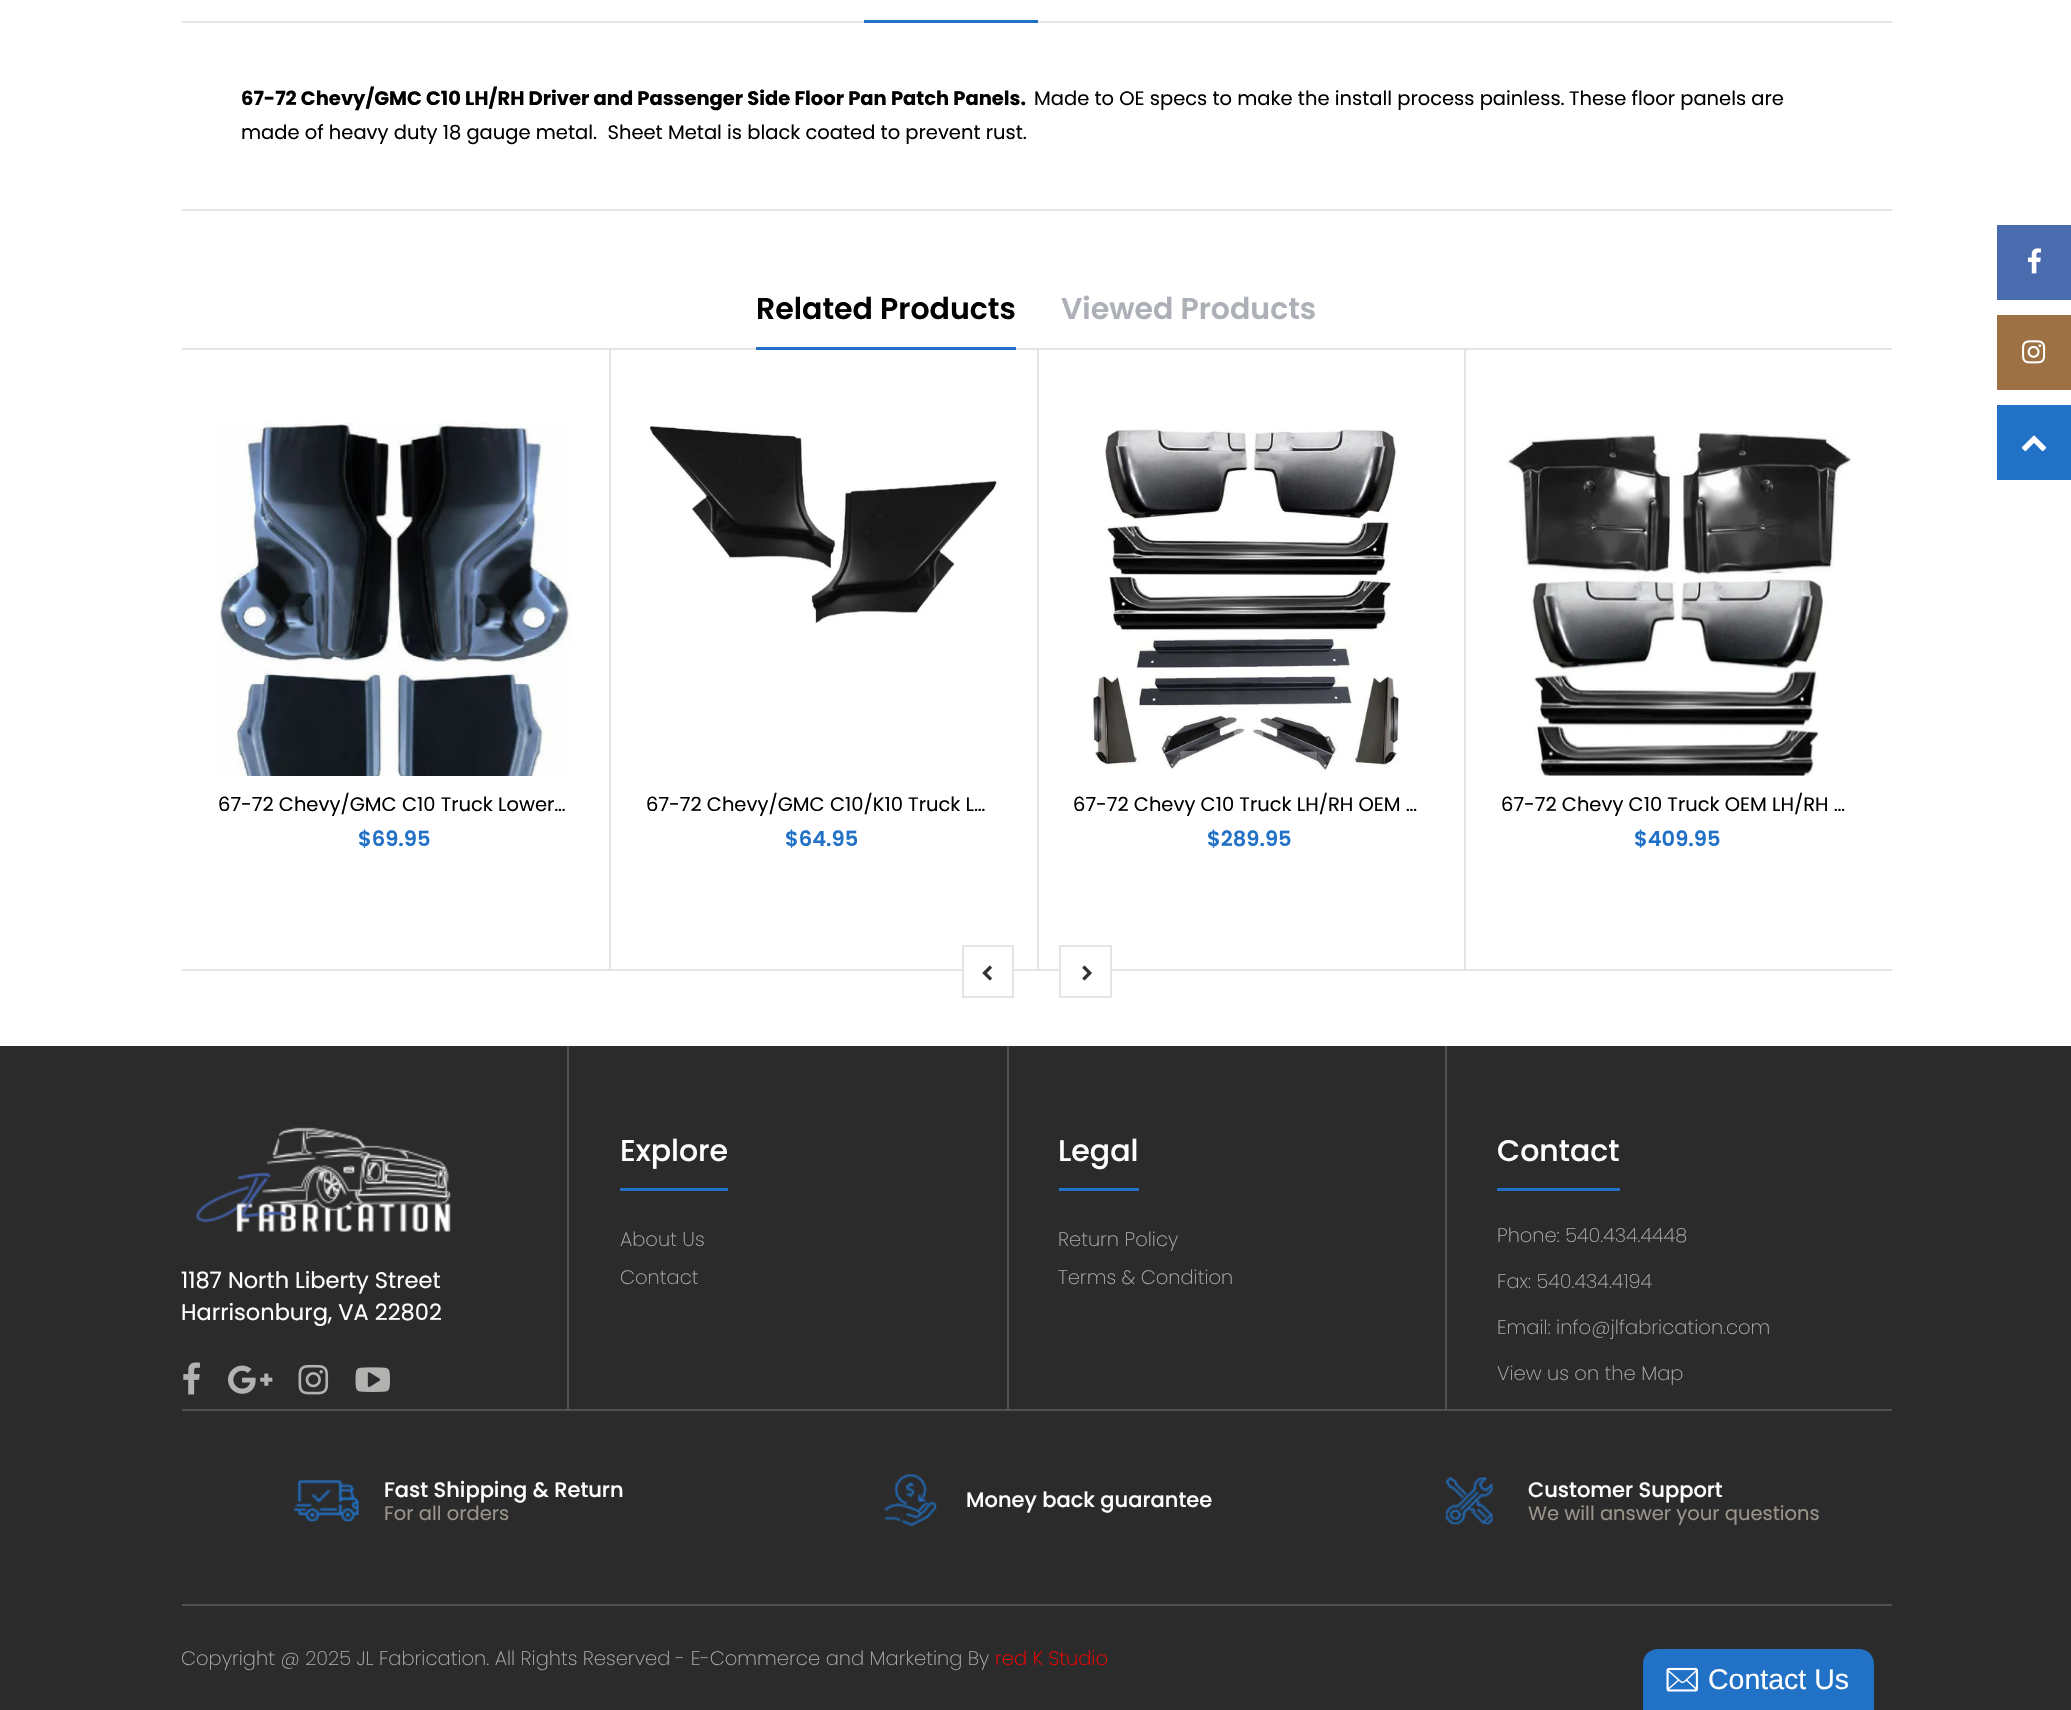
static SkFont makeFont(const char* family, int weight, float size, bool italic = false) {
  SkFontStyle style(weight, SkFontStyle::kNormal_Width,
    italic ? SkFontStyle::kItalic_Slant : SkFontStyle::kUpright_Slant);
  SkFont result(fontMgr->matchFamilyStyle(family, style), size);
  result.setSubpixel(true);
  return result;
}

static void text(SkCanvas* c, const char* s, float x, float y, const SkFont& font, SkColor color) {
  SkPaint ink(SkColor4f::FromColor(color));
  ink.setAntiAlias(true);
  c->drawString(s, x, y, font, ink);
}

static void box(SkCanvas* c, float l, float t, float r, float b, SkColor color) {
  SkPaint ink(SkColor4f::FromColor(color));
  ink.setAntiAlias(true);
  c->drawRect(SkRect::MakeLTRB(l, t, r, b), ink);
}

static void picture(SkCanvas* c, const char* path, float l, float t, float r, float b) {
  auto image = SkImages::DeferredFromEncodedData(SkData::MakeFromFileName(path));
  c->drawImageRect(image, SkRect::MakeLTRB(l, t, r, b), SkSamplingOptions());
}

void draw(SkCanvas* c) {
  SkPaint paint;
  paint.setAntiAlias(true);
  c->clear(0xffffffff);
  box(c, 182, 21, 1892, 23, 0xffe5e5e5);
  box(c, 864, 20, 1038, 23, 0xff2171c6);
  SkFont face1 = makeFont("Poppins", 700, 19.5f);
  text(c, "67-72 Chevy/GMC C10 LH/RH Driver and Passenger Side Floor Pan Patch Panels.", 241, 105, face1, 0xff000000);
  SkFont face2 = makeFont("Poppins", 400, 19.5f);
  text(c, "Made to OE specs to make the install process painless.", 1034, 105, face2, 0xff000000);
  text(c, "These floor panels are", 1569, 105, face2, 0xff000000);
  text(c, "made of heavy duty 18 gauge metal.  Sheet Metal is black coated to prevent rust.", 241, 139, face2, 0xff000000);
  box(c, 182, 209, 1892, 211, 0xffe5e5e5);
  SkFont face3 = makeFont("Poppins", 600, 30);
  text(c, "Related Products", 756, 319, face3, 0xff000000);
  box(c, 182, 348, 1892, 350, 0xffe5e5e5);
  box(c, 756, 347, 1016, 350, 0xff2171c6);
  text(c, "Viewed Products", 1061, 319, face3, 0xffadb0b7);
  picture(c, "img_01.png", 219, 423, 571, 776);
  box(c, 182, 969, 1892, 971, 0xffe5e5e5);
  box(c, 609, 350, 611, 971, 0xffe5e5e5);
  text(c, "67-72 Chevy/GMC C10 Truck Lower…", 218, 811, face2, 0xff000000);
  SkFont face4 = makeFont("Poppins", 600, 21);
  text(c, "$69.95", 358, 846, face4, 0xff2171c6);
  picture(c, "img_02.png", 649, 426, 999, 624);
  box(c, 1037, 350, 1039, 971, 0xffe5e5e5);
  text(c, "67-72 Chevy/GMC C10/K10 Truck L…", 646, 811, face2, 0xff000000);
  text(c, "$64.95", 785, 846, face4, 0xff2171c6);
  picture(c, "img_03.png", 1092, 429, 1400, 772);
  box(c, 1464, 350, 1466, 971, 0xffe5e5e5);
  text(c, "67-72 Chevy C10 Truck LH/RH OEM …", 1073, 811, face2, 0xff000000);
  text(c, "$289.95", 1207, 846, face4, 0xff2171c6);
  picture(c, "img_04.png", 1506, 432, 1851, 776);
  text(c, "67-72 Chevy C10 Truck OEM LH/RH …", 1501, 811, face2, 0xff000000);
  text(c, "$409.95", 1634, 846, face4, 0xff2171c6);
  box(c, 964, 969, 1012, 971, 0xffffffff);
  paint.setStyle(SkPaint::kStroke_Style);
  paint.setStrokeWidth(2);
  paint.setColor(0xffe5e5e5);
  c->drawRect(SkRect::MakeLTRB(963, 946, 1013, 997), paint);
  picture(c, "img_05.png", 982, 965, 992, 981);
  box(c, 1061, 969, 1110, 971, 0xffffffff);
  c->drawRect(SkRect::MakeLTRB(1060, 946, 1111, 997), paint);
  picture(c, "img_06.png", 1082, 965, 1092, 981);
  box(c, 0, 1046, 2071, 1710, 0xff2b2b2b);
  picture(c, "img_07.png", 196, 1127, 451, 1232);
  SkFont face5 = makeFont("Poppins", 400, 22.5f);
  text(c, "1187 North Liberty Street", 181, 1288, face5, 0xffffffff);
  text(c, "Harrisonburg, VA 22802", 181, 1320, face5, 0xffffffff);
  picture(c, "img_08.png", 183, 1362, 200, 1395);
  picture(c, "img_09.png", 228, 1365, 273, 1394);
  picture(c, "img_10.png", 298, 1364, 329, 1395);
  picture(c, "img_11.png", 355, 1367, 390, 1392);
  box(c, 567, 1046, 569, 1409, 0xff515151);
  box(c, 620, 1188, 728, 1191, 0xff2171c6);
  SkFont face6 = makeFont("Poppins", 500, 30);
  text(c, "Explore", 620, 1161, face6, 0xffffffff);
  SkFont face7 = makeFont("Poppins", 200, 19.5f);
  text(c, "About Us", 620, 1246, face7, 0xffababab);
  text(c, "Contact", 620, 1284, face7, 0xffababab);
  box(c, 1007, 1046, 1009, 1409, 0xff515151);
  box(c, 1059, 1188, 1139, 1191, 0xff2171c6);
  text(c, "Legal", 1058, 1161, face6, 0xffffffff);
  text(c, "Return Policy", 1058, 1246, face7, 0xffababab);
  text(c, "Terms & Condition", 1058, 1284, face7, 0xffababab);
  box(c, 1445, 1046, 1447, 1409, 0xff515151);
  box(c, 1497, 1188, 1620, 1191, 0xff2171c6);
  text(c, "Contact", 1497, 1161, face6, 0xffffffff);
  text(c, "Phone: 540.434.4448", 1497, 1242, face7, 0xffababab);
  text(c, "Fax: 540.434.4194", 1497, 1288, face7, 0xffababab);
  text(c, "Email: info@jlfabrication.com", 1497, 1334, face7, 0xffababab);
  text(c, "View us on the Map", 1497, 1380, face7, 0xffababab);
  box(c, 182, 1409, 1892, 1411, 0xff515151);
  picture(c, "img_12.png", 293, 1480, 359, 1522);
  SkFont face8 = makeFont("Poppins", 500, 21);
  text(c, "Fast Shipping & Return", 384, 1497, face8, 0xffffffff);
  text(c, "For all orders", 384, 1520, face2, 0xff9b948c);
  picture(c, "img_13.png", 884, 1474, 937, 1526);
  text(c, "Money back guarantee", 966, 1507, face8, 0xffffffff);
  picture(c, "img_14.png", 1445, 1477, 1493, 1525);
  text(c, "Customer Support", 1528, 1497, face8, 0xffffffff);
  text(c, "We will answer your questions", 1528, 1520, face2, 0xff9b948c);
  box(c, 182, 1604, 1892, 1606, 0xff515151);
  text(c, "Copyright @ 2025 JL Fabrication. All Rights Reserved - E-Commerce and Marketing By", 181, 1665, face7, 0xffababab);
  text(c, "red K Studio", 995, 1665, face7, 0xffff0000);
  box(c, 1997, 225, 2071, 300, 0xff4b6baf);
  picture(c, "img_15.png", 2027, 248, 2041, 274);
  box(c, 1997, 315, 2071, 390, 0xff9d7144);
  picture(c, "img_16.png", 2022, 340, 2046, 364);
  box(c, 1997, 405, 2071, 480, 0xff2171c6);
  picture(c, "img_17.png", 2021, 435, 2047, 452);
  paint.setStyle(SkPaint::kFill_Style);
  paint.setColor(0xff2171c6);
  c->drawPath(SkPathBuilder().moveTo(1658, 1649).lineTo(1859, 1649).cubicTo(1867.5f, 1649, 1874, 1655.5f, 1874, 1664).lineTo(1874, 1710).lineTo(1643, 1710).lineTo(1643, 1664).cubicTo(1643, 1655.5f, 1649.5f, 1649, 1658, 1649).close().detach(), paint);
  picture(c, "img_18.png", 1666, 1667, 1698, 1692);
  SkFont face9 = makeFont("Liberation Sans", 400, 28.5f);
  text(c, "Contact Us", 1708, 1689, face9, 0xffffffff);
}
